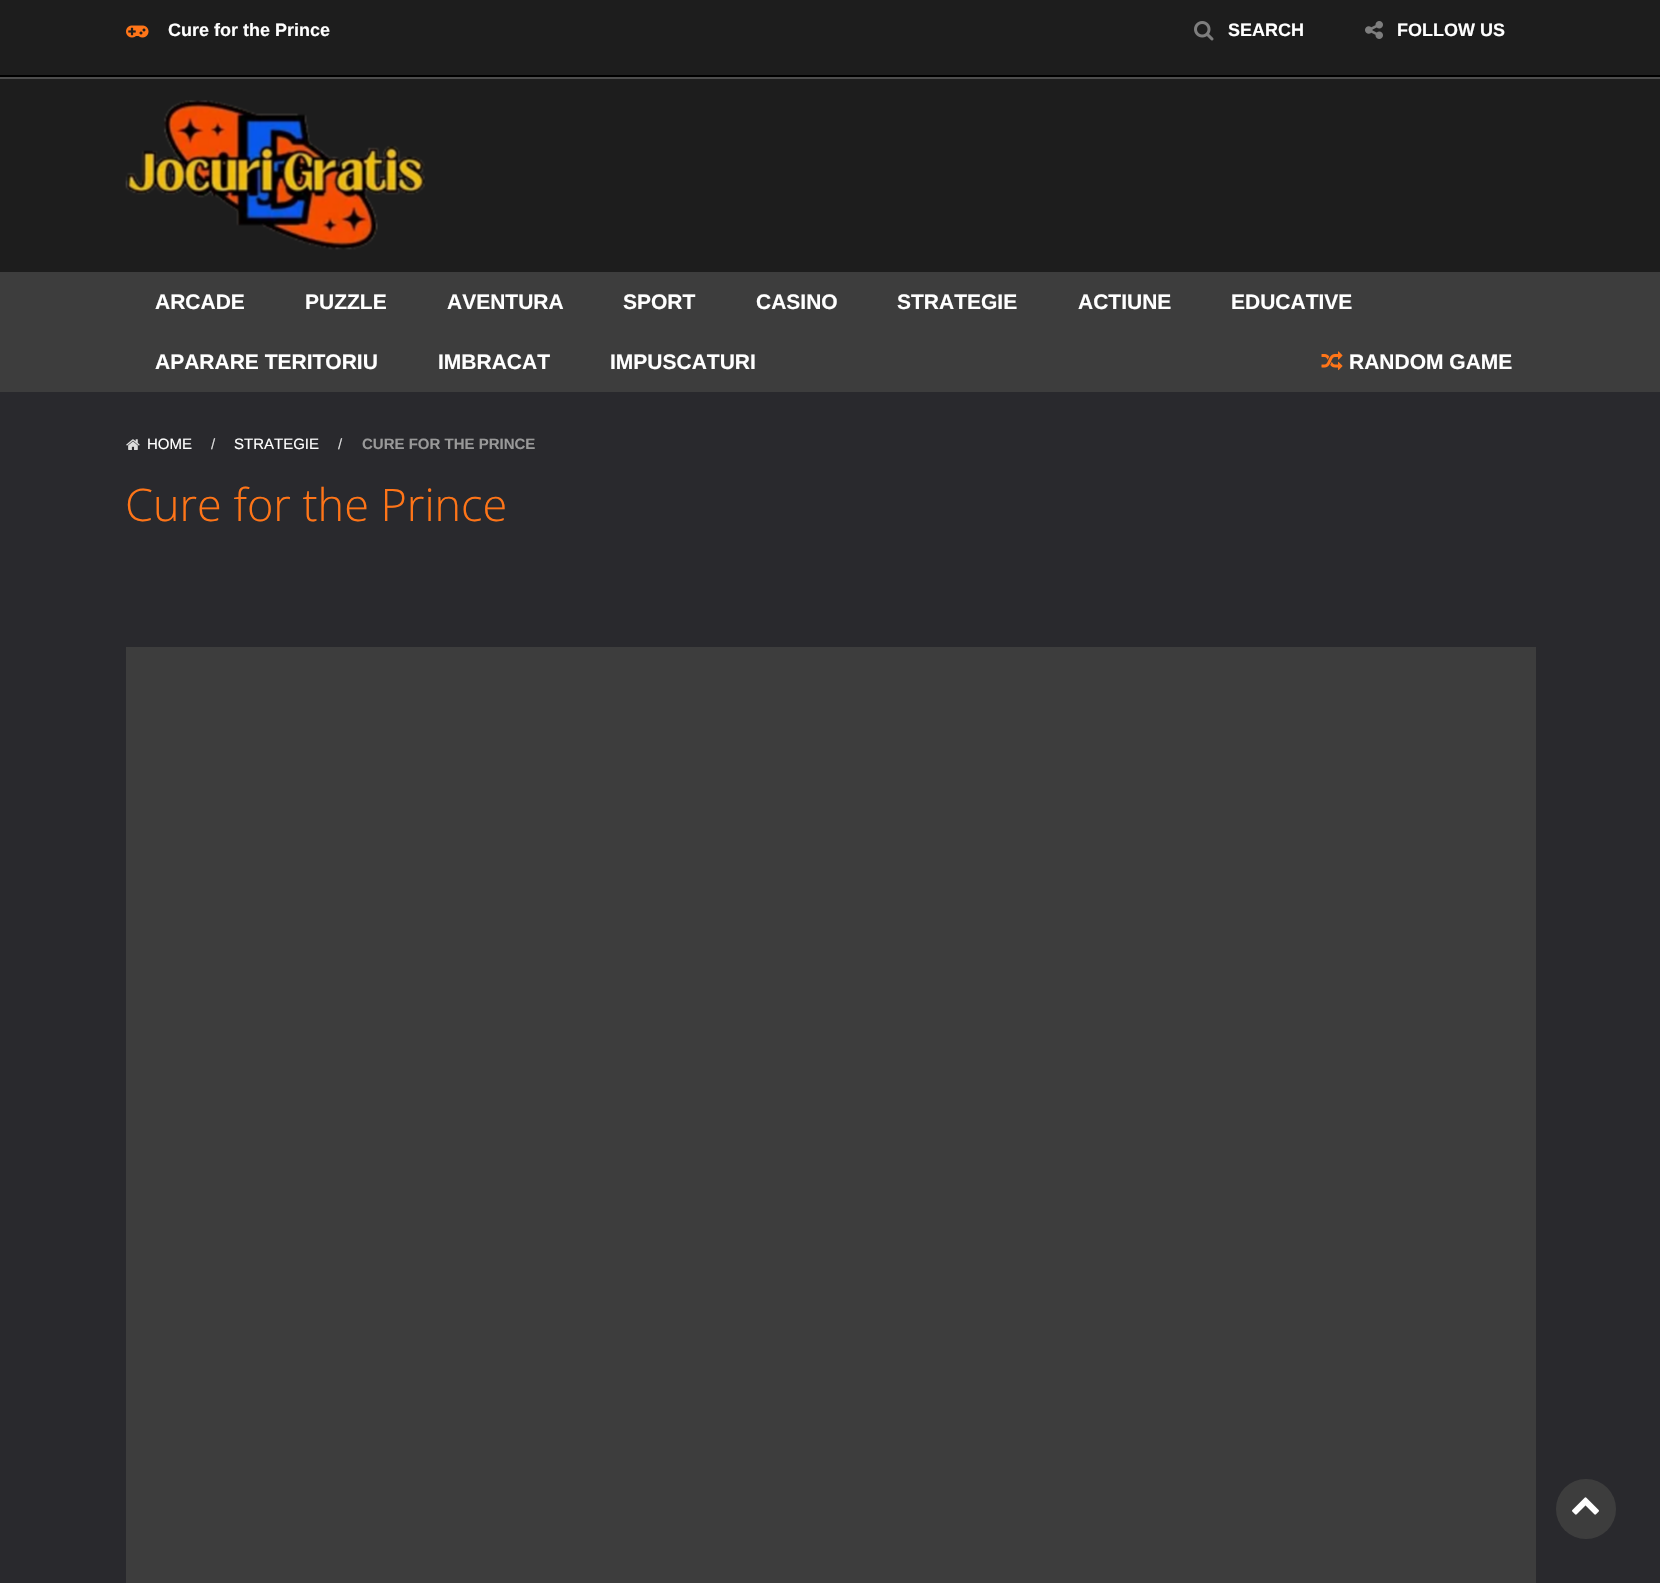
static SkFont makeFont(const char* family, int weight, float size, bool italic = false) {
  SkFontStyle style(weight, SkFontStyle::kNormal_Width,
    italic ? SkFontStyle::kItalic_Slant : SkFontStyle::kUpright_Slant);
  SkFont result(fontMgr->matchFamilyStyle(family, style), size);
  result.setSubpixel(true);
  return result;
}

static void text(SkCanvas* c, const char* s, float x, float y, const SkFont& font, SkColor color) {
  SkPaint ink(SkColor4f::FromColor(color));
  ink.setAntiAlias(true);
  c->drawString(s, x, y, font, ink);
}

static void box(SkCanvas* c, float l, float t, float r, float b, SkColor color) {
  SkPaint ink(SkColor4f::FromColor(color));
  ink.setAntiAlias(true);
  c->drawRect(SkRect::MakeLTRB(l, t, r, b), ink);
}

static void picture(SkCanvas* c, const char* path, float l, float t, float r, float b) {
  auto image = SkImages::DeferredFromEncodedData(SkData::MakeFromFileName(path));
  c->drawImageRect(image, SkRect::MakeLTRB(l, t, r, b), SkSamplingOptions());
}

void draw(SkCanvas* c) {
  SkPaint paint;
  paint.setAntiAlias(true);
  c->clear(0xff1d1d1d);
  box(c, 0, 75, 1660, 77, 0xff000000);
  picture(c, "img_01.png", 126, 25, 149, 38);
  SkFont face1 = makeFont("Liberation Sans", 700, 18);
  text(c, "Cure for the Prince", 168, 36, face1, 0xffffffff);
  picture(c, "img_02.png", 1194, 21, 1214, 41);
  text(c, "SEARCH", 1228, 36, face1, 0xffffffff);
  picture(c, "img_03.png", 1365, 21, 1383, 39);
  text(c, "FOLLOW US", 1397, 36, face1, 0xffffffff);
  box(c, 0, 77, 1660, 79, 0xff4d4d4d);
  picture(c, "img_04.png", 125, 100, 425, 250);
  box(c, 0, 272, 1660, 392, 0xff3d3d3d);
  SkFont face2 = makeFont("Liberation Sans", 700, 21);
  text(c, "ARCADE", 155, 309, face2, 0xffffffff);
  text(c, "PUZZLE", 305, 309, face2, 0xffffffff);
  text(c, "AVENTURA", 447, 309, face2, 0xffffffff);
  text(c, "SPORT", 623, 309, face2, 0xffffffff);
  text(c, "CASINO", 756, 309, face2, 0xffffffff);
  text(c, "STRATEGIE", 897, 309, face2, 0xffffffff);
  text(c, "ACTIUNE", 1078, 309, face2, 0xffffffff);
  text(c, "EDUCATIVE", 1231, 309, face2, 0xffffffff);
  text(c, "APARARE TERITORIU", 155, 369, face2, 0xffffffff);
  text(c, "IMBRACAT", 438, 369, face2, 0xffffffff);
  text(c, "IMPUSCATURI", 610, 369, face2, 0xffffffff);
  picture(c, "img_05.png", 1321, 351, 1343, 371);
  text(c, "RANDOM GAME", 1349, 369, face2, 0xffffffff);
  box(c, 0, 392, 1660, 1583, 0xff29292d);
  picture(c, "img_06.png", 126, 439, 140, 450);
  SkFont face3 = makeFont("Liberation Sans", 400, 15);
  text(c, "HOME", 147, 449, face3, 0xffffffff);
  text(c, "/", 211, 449, face3, 0xffdddddd);
  text(c, "STRATEGIE", 234, 449, face3, 0xffffffff);
  text(c, "/", 338, 449, face3, 0xffdddddd);
  SkFont face4 = makeFont("Liberation Sans", 700, 15);
  text(c, "CURE FOR THE PRINCE", 362, 449, face4, 0xff999999);
  SkFont face5 = makeFont("Open Sans", 300, 45);
  text(c, "Cure for the Prince", 125, 521, face5, 0xffff7518);
  box(c, 126, 647, 1536, 1583, 0xff3d3d3d);
  paint.setColor(0xff3d3d3d);
  c->drawCircle(1586, 1509, 30, paint);
  picture(c, "img_07.png", 1572, 1497, 1599, 1515);
}
